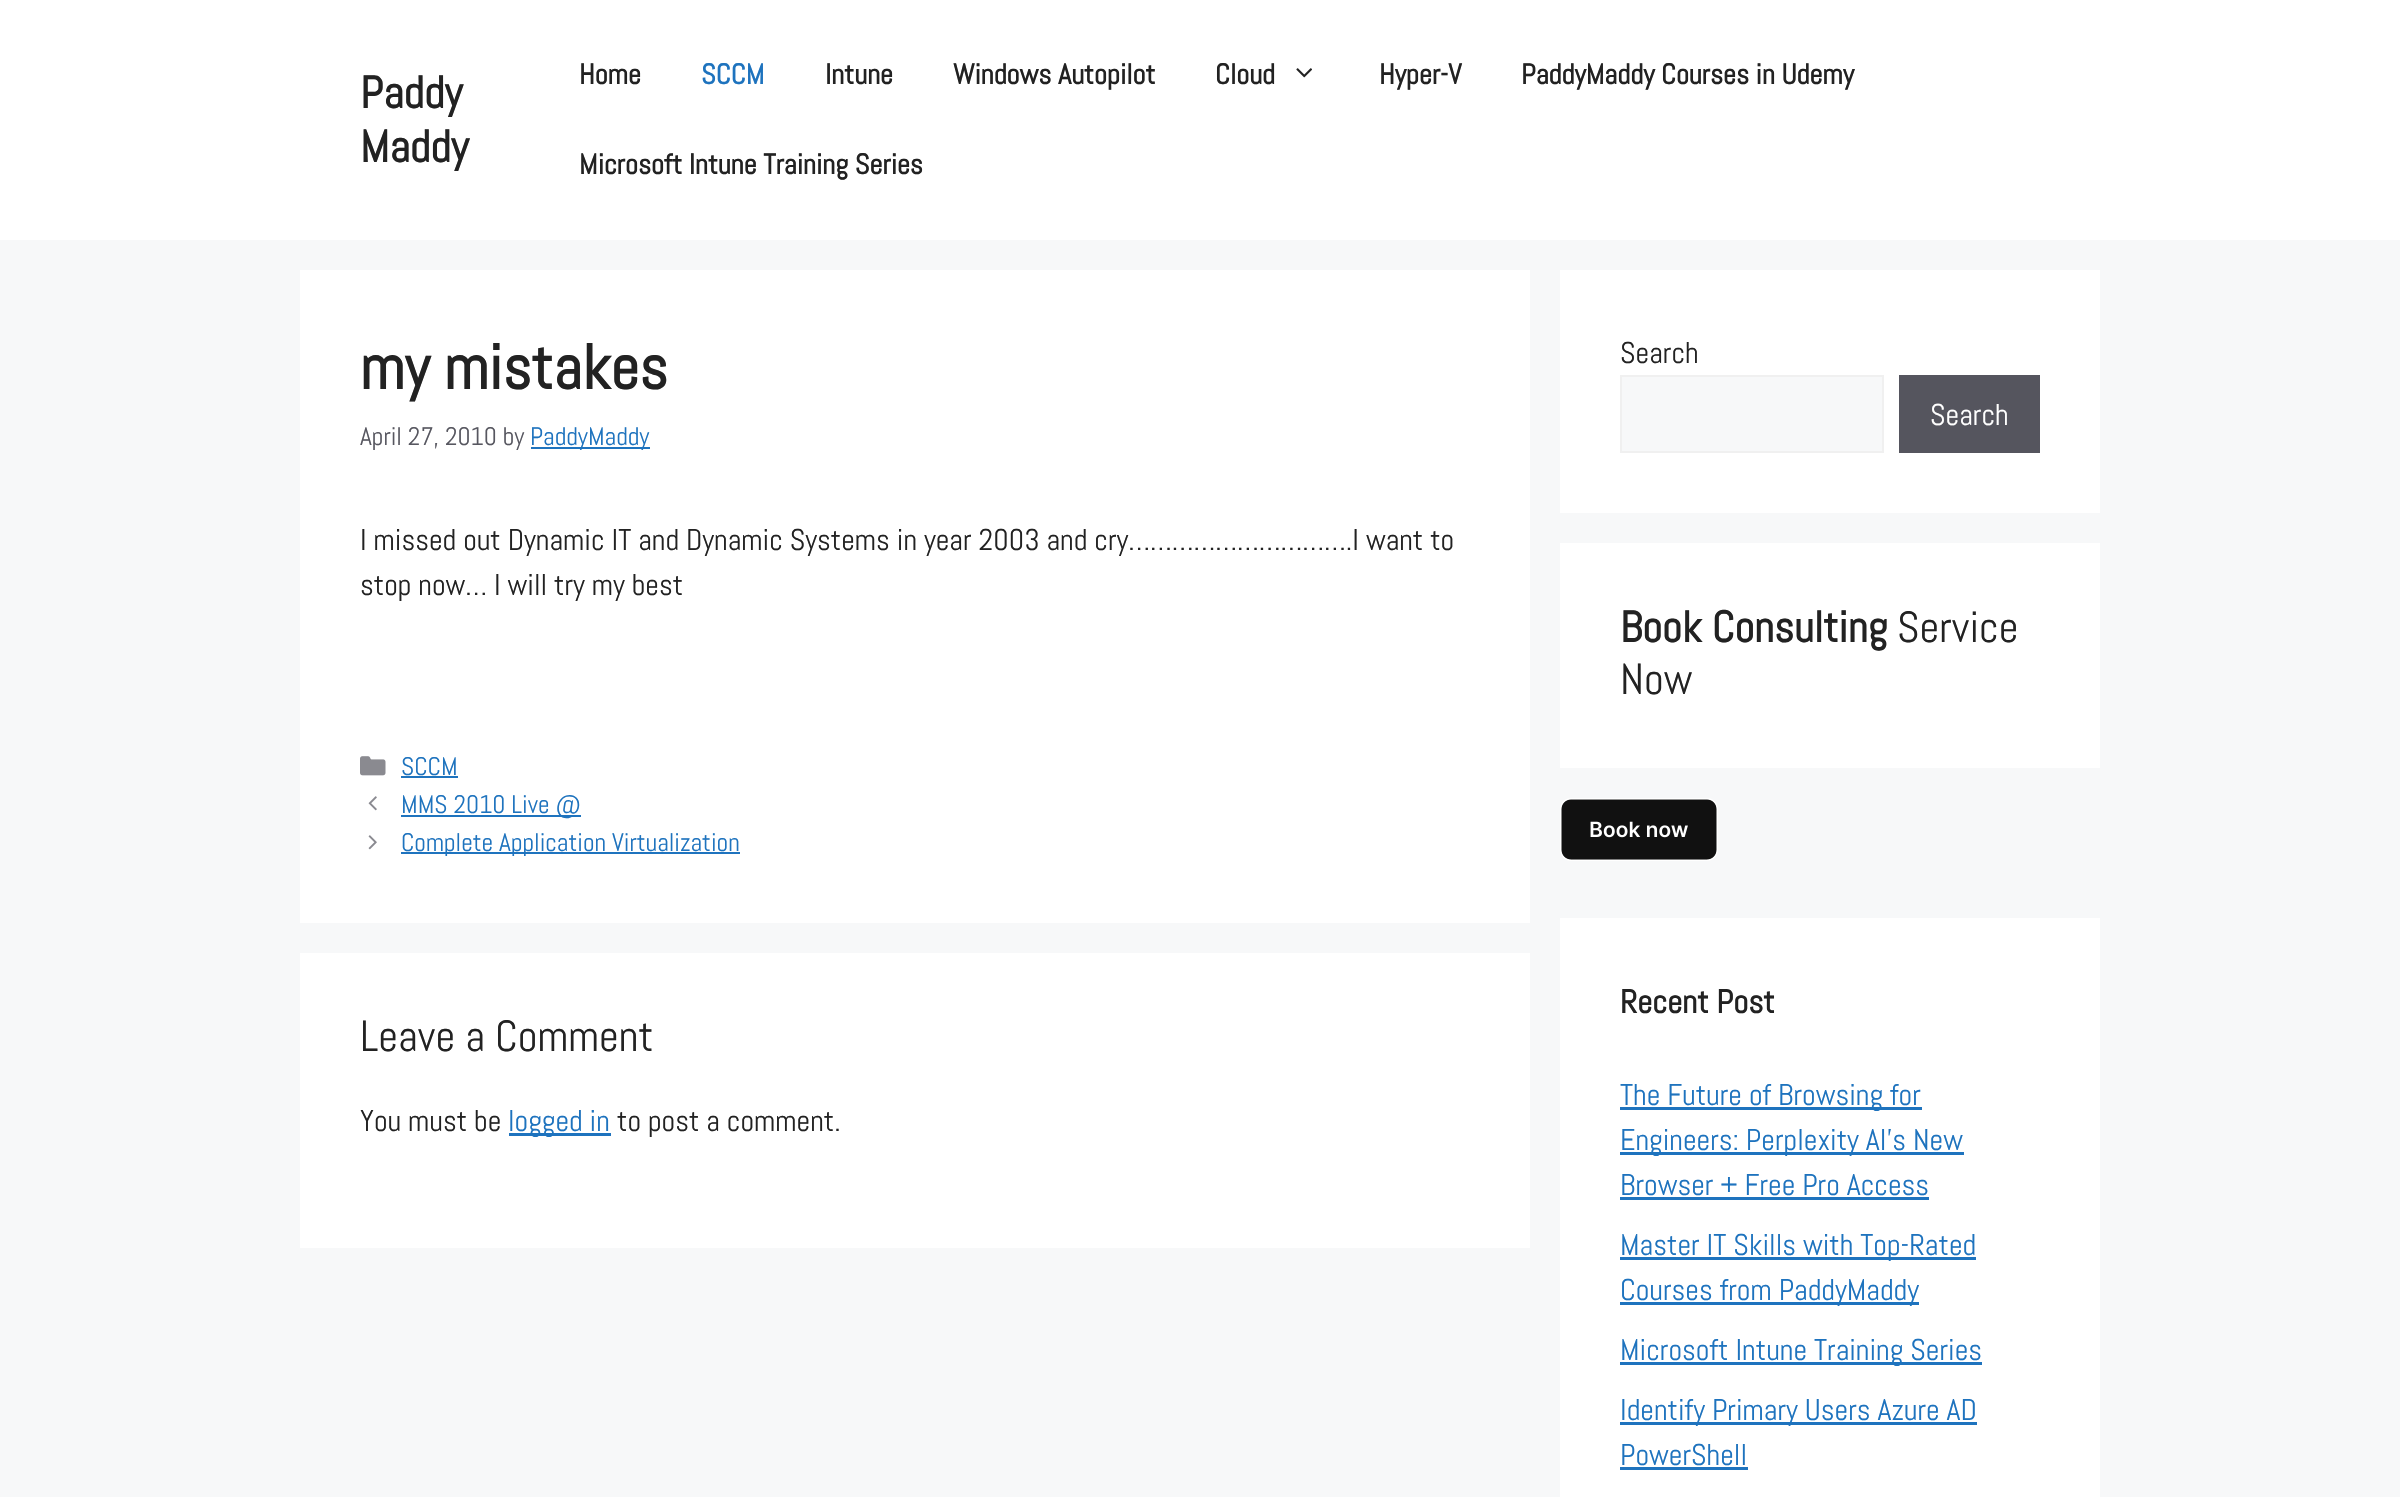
static SkFont makeFont(const char* family, int weight, float size, bool italic = false) {
  SkFontStyle style(weight, SkFontStyle::kNormal_Width,
    italic ? SkFontStyle::kItalic_Slant : SkFontStyle::kUpright_Slant);
  SkFont result(fontMgr->matchFamilyStyle(family, style), size);
  result.setSubpixel(true);
  return result;
}

static void text(SkCanvas* c, const char* s, float x, float y, const SkFont& font, SkColor color) {
  SkPaint ink(SkColor4f::FromColor(color));
  ink.setAntiAlias(true);
  c->drawString(s, x, y, font, ink);
}

static void box(SkCanvas* c, float l, float t, float r, float b, SkColor color) {
  SkPaint ink(SkColor4f::FromColor(color));
  ink.setAntiAlias(true);
  c->drawRect(SkRect::MakeLTRB(l, t, r, b), ink);
}

static void picture(SkCanvas* c, const char* path, float l, float t, float r, float b) {
  auto image = SkImages::DeferredFromEncodedData(SkData::MakeFromFileName(path));
  c->drawImageRect(image, SkRect::MakeLTRB(l, t, r, b), SkSamplingOptions());
}

void draw(SkCanvas* c) {
  SkPaint paint;
  paint.setAntiAlias(true);
  c->clear(0xfff7f8f9);
  box(c, 0, 0, 2400, 240, 0xffffffff);
  SkFont face1 = makeFont("Abel", 700, 45);
  text(c, "Paddy", 360, 108, face1, 0xff222222);
  text(c, "Maddy", 360, 162, face1, 0xff222222);
  SkFont face2 = makeFont("Abel", 700, 28.5f);
  text(c, "Home", 579, 84, face2, 0xff222222);
  text(c, "SCCM", 701, 84, face2, 0xff1e73be);
  text(c, "Intune", 825, 84, face2, 0xff222222);
  text(c, "Windows Autopilot", 953, 84, face2, 0xff222222);
  text(c, "Cloud", 1215, 84, face2, 0xff222222);
  picture(c, "img_01.png", 1296, 68, 1312, 78);
  text(c, "Hyper-V", 1379, 84, face2, 0xff222222);
  text(c, "PaddyMaddy Courses in Udemy", 1521, 84, face2, 0xff222222);
  text(c, "Microsoft Intune Training Series", 579, 174, face2, 0xff222222);
  box(c, 300, 270, 1530, 923, 0xffffffff);
  SkFont face3 = makeFont("Abel", 700, 63);
  text(c, "my mistakes", 360, 389, face3, 0xff222222);
  SkFont face4 = makeFont("Abel", 400, 25.5f);
  text(c, "April 27, 2010 by", 360, 445, face4, 0xff575760);
  box(c, 531, 447, 650, 449, 0xff1e73be);
  text(c, "PaddyMaddy", 530, 445, face4, 0xff1e73be);
  SkFont face5 = makeFont("Abel", 400, 30);
  text(c, "I missed out Dynamic IT and Dynamic Systems in year 2003 and cry………………………….I want to", 360, 550, face5, 0xff222222);
  text(c, "stop now… I will try my best", 360, 595, face5, 0xff222222);
  picture(c, "img_02.png", 360, 756, 386, 776);
  text(c, "SCCM", 401, 775, face4, 0xff1e73be);
  box(c, 401, 776, 458, 778, 0xff1e73be);
  picture(c, "img_03.png", 368, 796, 377, 811);
  box(c, 401, 815, 581, 817, 0xff1e73be);
  text(c, "MMS 2010 Live @", 401, 813, face4, 0xff1e73be);
  picture(c, "img_04.png", 368, 835, 377, 850);
  box(c, 401, 852, 740, 854, 0xff1e73be);
  text(c, "Complete Application Virtualization", 401, 851, face4, 0xff1e73be);
  box(c, 300, 953, 1530, 1248, 0xffffffff);
  SkFont face6 = makeFont("Abel", 400, 43.5f);
  text(c, "Leave a Comment", 360, 1051, face6, 0xff222222);
  text(c, "You must be", 360, 1131, face5, 0xff222222);
  box(c, 509, 1133, 611, 1136, 0xff1e73be);
  text(c, "logged in", 508, 1131, face5, 0xff1e73be);
  text(c, "to post a comment.", 617, 1131, face5, 0xff222222);
  box(c, 1560, 270, 2100, 513, 0xffffffff);
  text(c, "Search", 1620, 363, face5, 0xff222222);
  paint.setColor(0xfff7f8f9);
  c->drawRect(SkRect::MakeLTRB(1621, 376, 1883, 452), paint);
  paint.setStyle(SkPaint::kStroke_Style);
  paint.setStrokeWidth(2);
  paint.setColor(0xfff0f0f0);
  c->drawRect(SkRect::MakeLTRB(1621, 376, 1883, 452), paint);
  box(c, 1899, 375, 2040, 453, 0xff55555e);
  text(c, "Search", 1930, 425, face5, 0xffffffff);
  box(c, 1560, 543, 2100, 768, 0xffffffff);
  SkFont face7 = makeFont("Abel", 700, 43.5f);
  text(c, "Book Consulting", 1620, 642, face7, 0xff222222);
  text(c, "Service", 1897, 642, face6, 0xff222222);
  text(c, "Now", 1620, 694, face6, 0xff222222);
  picture(c, "img_05.png", 1560, 798, 1718, 861);
  box(c, 1560, 918, 2100, 1497, 0xffffffff);
  SkFont face8 = makeFont("Abel", 700, 33);
  text(c, "Recent Post", 1620, 1013, face8, 0xff222222);
  box(c, 1620, 1107, 1922, 1110, 0xff1e73be);
  text(c, "The Future of Browsing for", 1620, 1105, face5, 0xff1e73be);
  box(c, 1620, 1152, 1964, 1155, 0xff1e73be);
  text(c, "Engineers: Perplexity AI’s New", 1620, 1150, face5, 0xff1e73be);
  text(c, "Browser + Free Pro Access", 1620, 1195, face5, 0xff1e73be);
  box(c, 1620, 1197, 1929, 1200, 0xff1e73be);
  box(c, 1620, 1257, 1976, 1260, 0xff1e73be);
  text(c, "Master IT Skills with Top-Rated", 1620, 1255, face5, 0xff1e73be);
  box(c, 1620, 1302, 1919, 1305, 0xff1e73be);
  text(c, "Courses from PaddyMaddy", 1620, 1300, face5, 0xff1e73be);
  box(c, 1620, 1362, 1982, 1365, 0xff1e73be);
  text(c, "Microsoft Intune Training Series", 1620, 1360, face5, 0xff1e73be);
  box(c, 1620, 1422, 1977, 1425, 0xff1e73be);
  text(c, "Identify Primary Users Azure AD", 1620, 1420, face5, 0xff1e73be);
  text(c, "PowerShell", 1620, 1465, face5, 0xff1e73be);
  box(c, 1620, 1467, 1748, 1470, 0xff1e73be);
}
